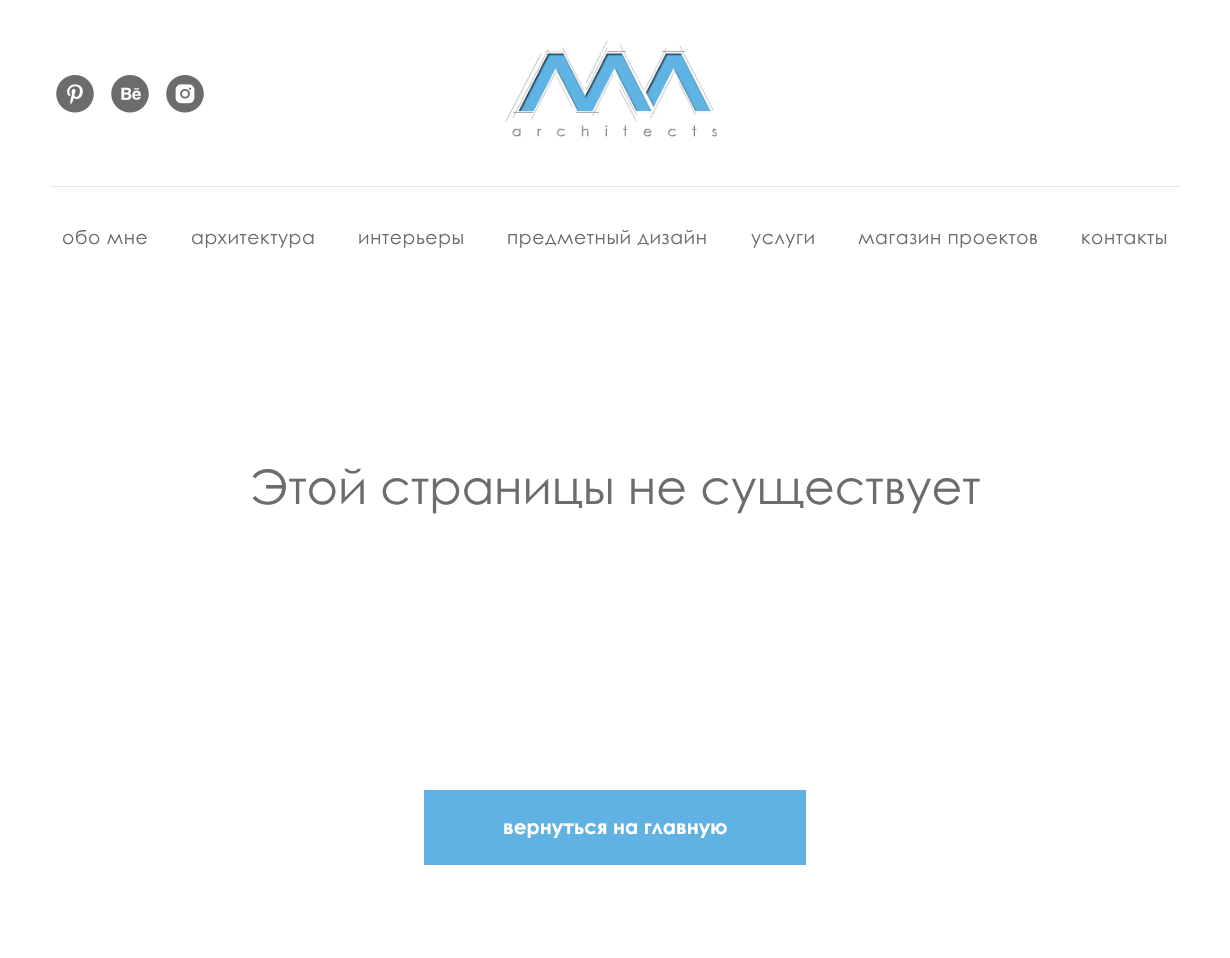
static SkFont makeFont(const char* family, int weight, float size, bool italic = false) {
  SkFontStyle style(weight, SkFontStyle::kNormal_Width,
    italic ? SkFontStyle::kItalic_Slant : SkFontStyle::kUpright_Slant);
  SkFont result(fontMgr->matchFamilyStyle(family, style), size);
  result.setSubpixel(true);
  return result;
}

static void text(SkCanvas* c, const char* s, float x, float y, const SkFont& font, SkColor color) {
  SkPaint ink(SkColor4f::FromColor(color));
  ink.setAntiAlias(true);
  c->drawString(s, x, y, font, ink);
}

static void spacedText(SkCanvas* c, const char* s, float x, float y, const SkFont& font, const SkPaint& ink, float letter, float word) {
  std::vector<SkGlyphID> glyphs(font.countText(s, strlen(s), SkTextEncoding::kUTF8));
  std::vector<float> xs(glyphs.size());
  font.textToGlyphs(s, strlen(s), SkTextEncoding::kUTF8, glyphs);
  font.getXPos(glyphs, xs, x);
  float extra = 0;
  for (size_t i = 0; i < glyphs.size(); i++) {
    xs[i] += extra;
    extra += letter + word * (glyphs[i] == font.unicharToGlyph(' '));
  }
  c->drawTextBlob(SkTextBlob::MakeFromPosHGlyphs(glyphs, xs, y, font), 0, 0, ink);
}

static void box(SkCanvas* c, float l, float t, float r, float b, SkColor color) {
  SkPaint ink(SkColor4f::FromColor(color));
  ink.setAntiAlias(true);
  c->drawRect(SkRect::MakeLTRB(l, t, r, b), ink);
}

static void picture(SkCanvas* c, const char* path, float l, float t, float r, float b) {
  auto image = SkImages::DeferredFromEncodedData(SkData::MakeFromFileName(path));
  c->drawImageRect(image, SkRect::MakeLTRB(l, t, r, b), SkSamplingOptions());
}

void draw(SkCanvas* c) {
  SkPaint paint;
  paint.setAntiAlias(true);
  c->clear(0xffffffff);
  picture(c, "img_01.png", 56, 75, 94, 113);
  picture(c, "img_02.png", 111, 75, 149, 113);
  picture(c, "img_03.png", 166, 75, 204, 113);
  picture(c, "img_04.png", 505, 40, 718, 137);
  box(c, 50, 186, 1180, 187, 0xffe6e6e6);
  SkFont face1 = makeFont("Century Gothic", 400, 18.75f);
  paint.setColor(0xff6c6c6c);
  spacedText(c, "обо мне", 62, 244, face1, paint, 0.6f, 0);
  spacedText(c, "архитектура", 191, 244, face1, paint, 0.6f, 0);
  spacedText(c, "интерьеры", 358, 244, face1, paint, 0.6f, 0);
  spacedText(c, "предметный дизайн", 507, 244, face1, paint, 0.6f, 0);
  spacedText(c, "услуги", 751, 244, face1, paint, 0.6f, 0);
  spacedText(c, "магазин проектов", 858, 244, face1, paint, 0.6f, 0);
  spacedText(c, "контакты", 1081, 244, face1, paint, 0.6f, 0);
  SkFont face2 = makeFont("Century Gothic", 400, 47.5f);
  text(c, "Этой страницы не существует", 250, 504, face2, 0xff6c6c6c);
  box(c, 424, 790, 806, 865, 0xff5fb2e1);
  SkFont face3 = makeFont("Century Gothic", 700, 20);
  text(c, "вернуться на главную", 503, 834, face3, 0xffffffff);
}
